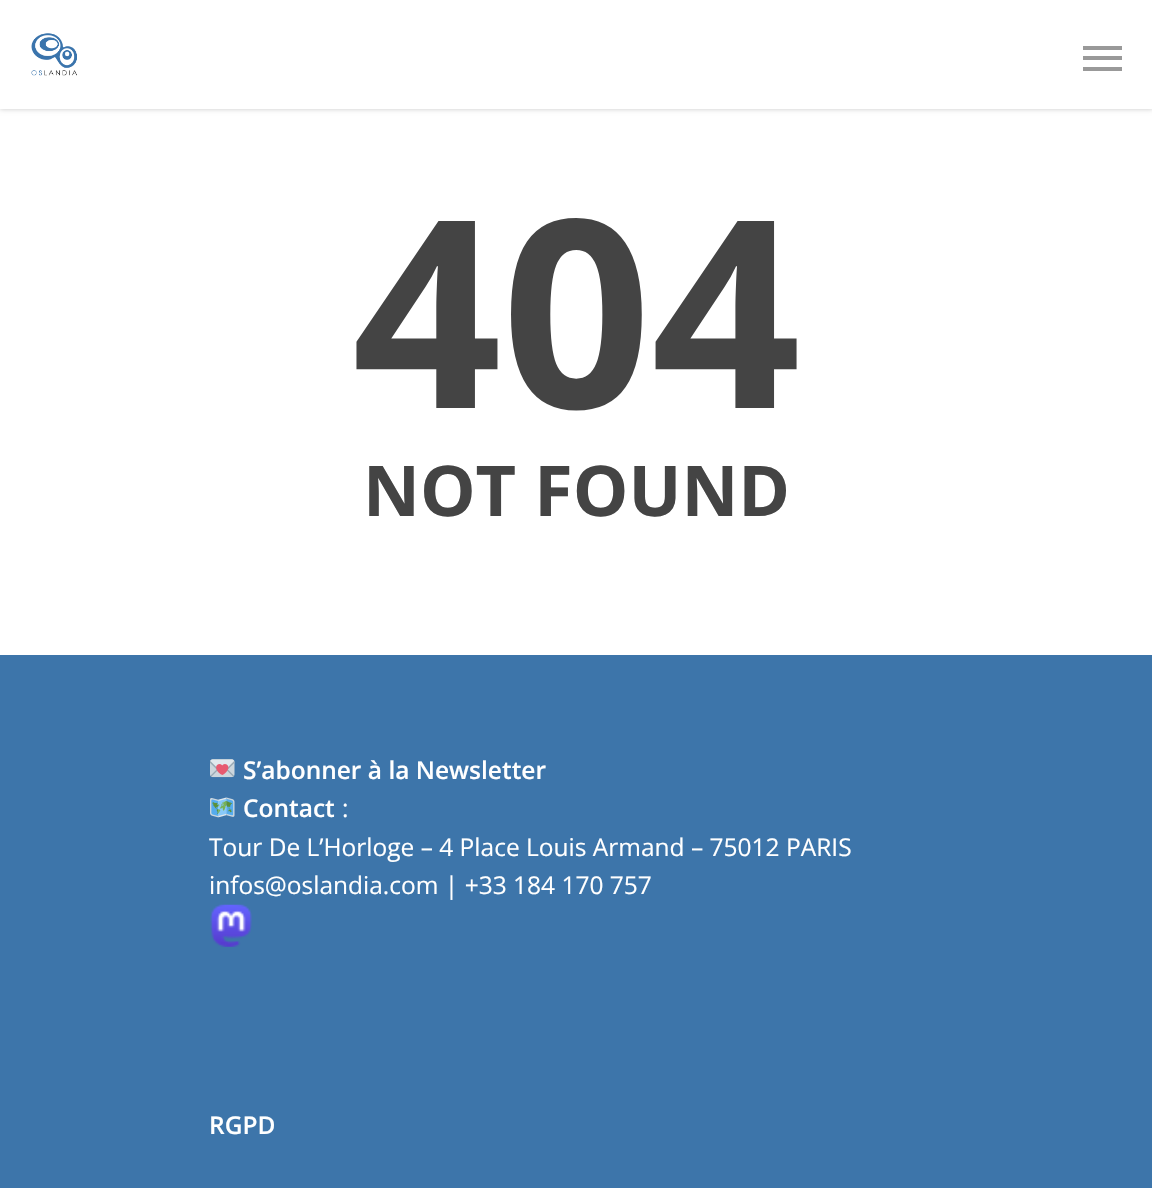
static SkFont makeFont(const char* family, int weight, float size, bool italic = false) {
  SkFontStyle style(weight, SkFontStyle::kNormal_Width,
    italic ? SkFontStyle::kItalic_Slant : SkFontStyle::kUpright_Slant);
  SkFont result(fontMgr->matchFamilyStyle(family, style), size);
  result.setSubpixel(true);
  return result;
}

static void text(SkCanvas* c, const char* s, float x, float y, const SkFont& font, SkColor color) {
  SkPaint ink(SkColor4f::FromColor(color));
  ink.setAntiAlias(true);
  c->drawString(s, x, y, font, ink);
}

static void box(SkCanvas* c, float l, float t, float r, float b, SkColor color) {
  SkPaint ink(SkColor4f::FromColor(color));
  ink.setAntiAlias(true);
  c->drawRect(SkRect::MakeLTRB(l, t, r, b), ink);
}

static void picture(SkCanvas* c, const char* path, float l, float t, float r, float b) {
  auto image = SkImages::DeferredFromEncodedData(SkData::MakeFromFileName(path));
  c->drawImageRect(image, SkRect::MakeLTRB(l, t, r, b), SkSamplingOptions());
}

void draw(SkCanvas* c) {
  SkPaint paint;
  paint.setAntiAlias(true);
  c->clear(0xff3d75aa);
  box(c, 0, 109, 1152, 655, 0xffffffff);
  paint.setColor(0x38000000);
  paint.setMaskFilter(SkMaskFilter::MakeBlur(kNormal_SkBlurStyle, 2.5f));
  c->drawRect(SkRect::MakeLTRB(0, 0, 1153, 109), paint);
  paint.setMaskFilter(nullptr);
  box(c, 0, 0, 1152, 109, 0xffffffff);
  picture(c, "img_01.png", 31, 33, 77, 76);
  box(c, 1083, 46, 1122, 50, 0xff999999);
  box(c, 1083, 67, 1122, 71, 0xff999999);
  box(c, 1083, 56, 1122, 60, 0xff999999);
  SkFont face1 = makeFont("Open Sans", 700, 262);
  text(c, "404", 352, 408, face1, 0xff444444);
  SkFont face2 = makeFont("Open Sans", 700, 70);
  text(c, "NOT FOUND", 363, 516, face2, 0xff444444);
  picture(c, "img_02.png", 210, 759, 235, 778);
  SkFont face3 = makeFont("Open Sans", 600, 24.5f);
  text(c, "S’abonner à la Newsletter", 243, 779, face3, 0xffffffff);
  picture(c, "img_03.png", 210, 797, 235, 818);
  text(c, "Contact", 243, 817, face3, 0xffffffff);
  SkFont face4 = makeFont("Open Sans", 400, 24.5f);
  text(c, ":", 342, 817, face4, 0xffffffff);
  text(c, "Tour De L’Horloge – 4 Place Louis Armand – 75012 PARIS", 209, 856, face4, 0xffffffff);
  text(c, "infos@oslandia.com | +33 184 170 757", 209, 894, face4, 0xffffffff);
  picture(c, "img_04.png", 210, 904, 252, 947);
  text(c, "RGPD", 209, 1134, face3, 0xffffffff);
}
